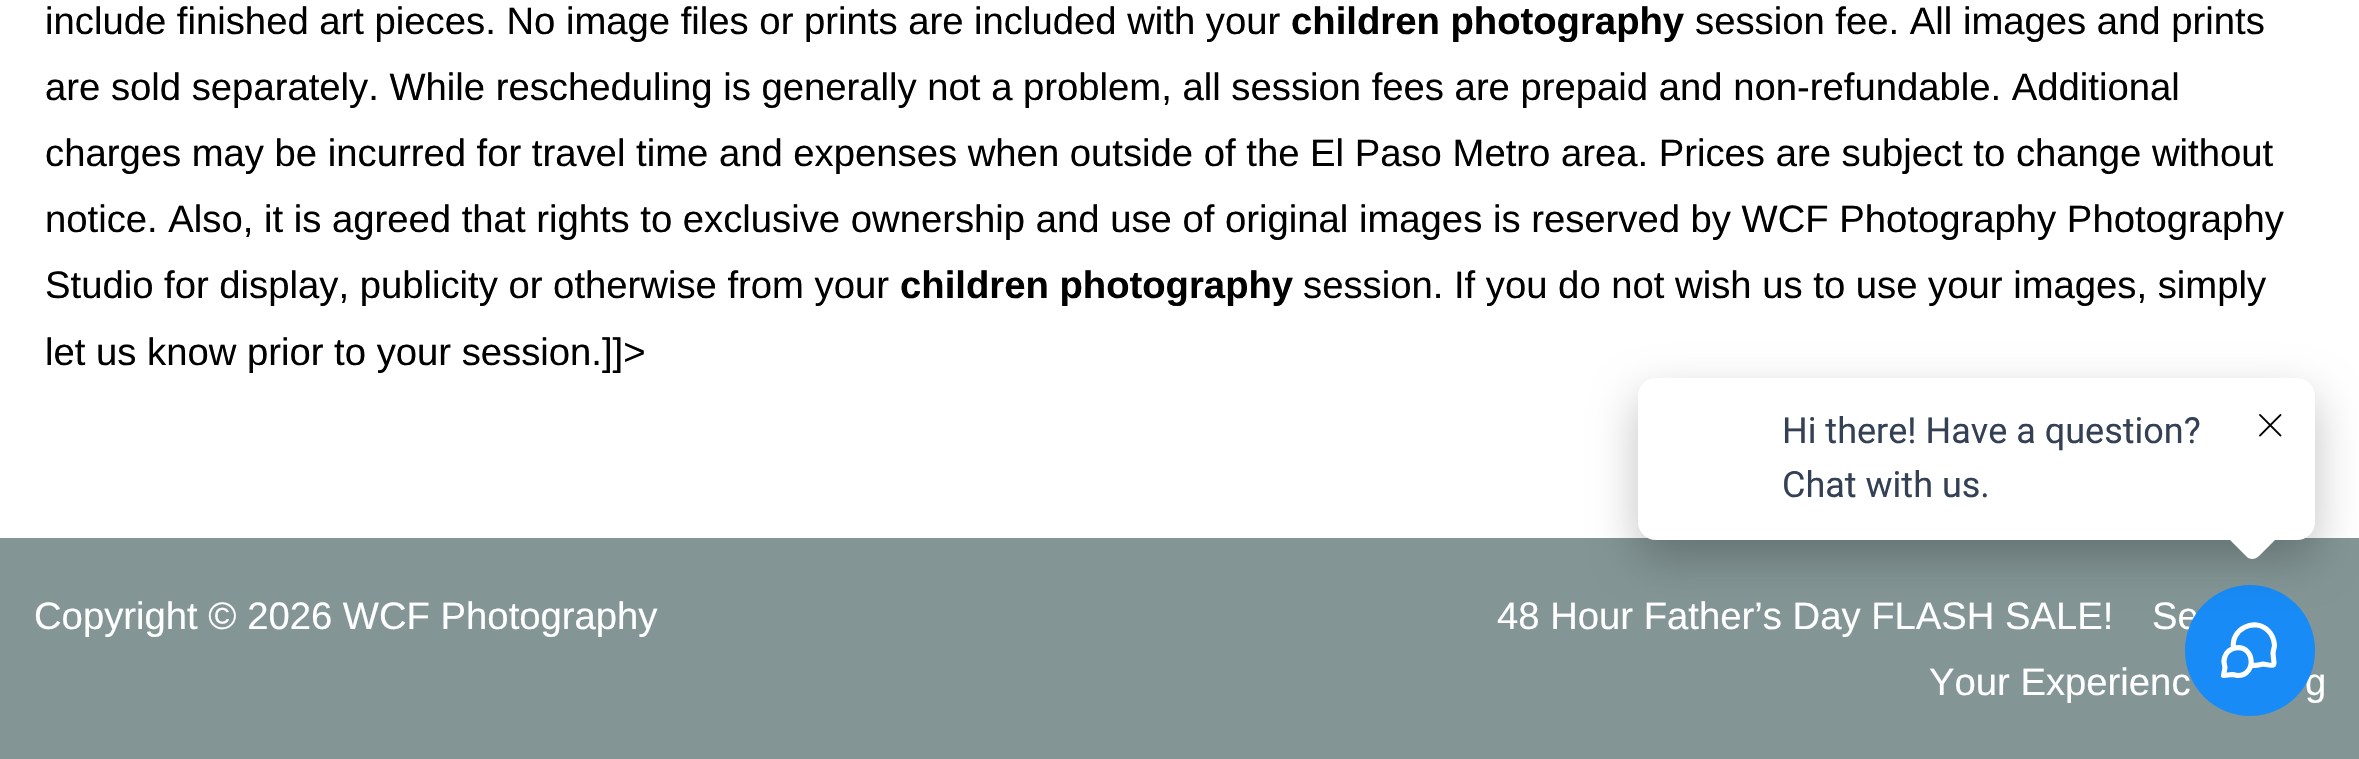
static SkFont makeFont(const char* family, int weight, float size, bool italic = false) {
  SkFontStyle style(weight, SkFontStyle::kNormal_Width,
    italic ? SkFontStyle::kItalic_Slant : SkFontStyle::kUpright_Slant);
  SkFont result(fontMgr->matchFamilyStyle(family, style), size);
  result.setSubpixel(true);
  return result;
}

static void text(SkCanvas* c, const char* s, float x, float y, const SkFont& font, SkColor color) {
  SkPaint ink(SkColor4f::FromColor(color));
  ink.setAntiAlias(true);
  c->drawString(s, x, y, font, ink);
}

static void box(SkCanvas* c, float l, float t, float r, float b, SkColor color) {
  SkPaint ink(SkColor4f::FromColor(color));
  ink.setAntiAlias(true);
  c->drawRect(SkRect::MakeLTRB(l, t, r, b), ink);
}

static void roundBox(SkCanvas* c, float l, float t, float r, float b, float radius, SkColor color) {
  SkPaint ink(SkColor4f::FromColor(color));
  ink.setAntiAlias(true);
  c->drawRoundRect(SkRect::MakeLTRB(l, t, r, b), radius, radius, ink);
}

static void picture(SkCanvas* c, const char* path, float l, float t, float r, float b) {
  auto image = SkImages::DeferredFromEncodedData(SkData::MakeFromFileName(path));
  c->drawImageRect(image, SkRect::MakeLTRB(l, t, r, b), SkSamplingOptions());
}

void draw(SkCanvas* c) {
  SkPaint paint;
  paint.setAntiAlias(true);
  c->clear(0xffffffff);
  SkFont face1 = makeFont("Liberation Sans", 400, 38.25f);
  text(c, "include finished art pieces. No image files or prints are included with your", 45, 34, face1, 0xff000000);
  SkFont face2 = makeFont("Liberation Sans", 700, 38.25f);
  text(c, "children photography", 1291, 34, face2, 0xff000000);
  text(c, "session fee. All images and prints", 1695, 34, face1, 0xff000000);
  text(c, "are sold separately. While rescheduling is generally not a problem, all session fees are prepaid and non-refundable. Additional", 45, 100, face1, 0xff000000);
  text(c, "charges may be incurred for travel time and expenses when outside of the El Paso Metro area. Prices are subject to change without", 45, 166, face1, 0xff000000);
  text(c, "notice. Also, it is agreed that rights to exclusive ownership and use of original images is reserved by WCF Photography Photography", 45, 232, face1, 0xff000000);
  text(c, "Studio for display, publicity or otherwise from your", 45, 298, face1, 0xff000000);
  text(c, "children photography", 900, 298, face2, 0xff000000);
  text(c, "session. If you do not wish us to use your images, simply", 1303, 298, face1, 0xff000000);
  text(c, "let us know prior to your session.]]>", 45, 365, face1, 0xff000000);
  box(c, 0, 538, 2359, 759, 0xff839595);
  text(c, "Copyright © 2026 WCF Photography", 34, 629, face1, 0xffffffff);
  text(c, "48 Hour Father’s Day FLASH SALE!", 1497, 629, face1, 0xffffffff);
  text(c, "Se", 2152, 629, face1, 0xffffffff);
  text(c, "Your Experienc", 1929, 695, face1, 0xffffffff);
  text(c, "g", 2305, 695, face1, 0xffffffff);
  roundBox(c, 2185, 585, 2315, 716, 65, 0xff188bf6);
  paint.setStyle(SkPaint::kStroke_Style);
  paint.setStrokeWidth(5.1f);
  paint.setStrokeCap(SkPaint::kRound_Cap);
  paint.setStrokeJoin(SkPaint::kRound_Join);
  paint.setColor(0xffffffff);
  c->drawPath(SkPathBuilder().moveTo(2233.5f, 648.5f).cubicTo(2230.5f, 629, 2254.5f, 617, 2268.5f, 631).cubicTo(2272.5f, 635, 2274, 639.5f, 2274.5f, 645).cubicTo(2274.5f, 648, 2273, 650.5f, 2273, 653.5f).lineTo(2274, 663).lineTo(2273.5f, 665).cubicTo(2272, 666, 2264.5f, 664, 2263, 664).lineTo(2258.5f, 665).cubicTo(2256, 665.5f, 2253.5f, 665.5f, 2251, 665.5f).moveTo(2237.5f, 675.5f).cubicTo(2257.5f, 675.5f, 2254.5f, 644, 2235, 648).cubicTo(2230.5f, 649, 2226.5f, 652, 2225, 656.5f).cubicTo(2224, 659, 2223.5f, 662, 2224.5f, 665).lineTo(2225, 667.5f).lineTo(2223.5f, 675.5f).lineTo(2232.5f, 674.5f).close().detach(), paint);
  paint.setStyle(SkPaint::kFill_Style);
  paint.setColor(0x3d000000);
  paint.setMaskFilter(SkMaskFilter::MakeBlur(kNormal_SkBlurStyle, 22.5f));
  c->drawRoundRect(SkRect::MakeLTRB(1638, 396, 2315, 558), 18, 18, paint);
  paint.setMaskFilter(nullptr);
  roundBox(c, 1638, 378, 2315, 540, 18, 0xffffffff);
  SkFont face3 = makeFont("Roboto", 400, 36);
  text(c, "Hi there! Have a question?", 1782, 443, face3, 0xff344054);
  text(c, "Chat with us.", 1782, 497, face3, 0xff344054);
  paint.setColor(0xffffffff);
  c->drawPath(SkPathBuilder().moveTo(2259, 506).lineTo(2278, 525).cubicTo(2281, 528, 2281, 534, 2278, 537).lineTo(2259, 556).cubicTo(2255, 560, 2249, 560, 2246, 556).lineTo(2227, 537).cubicTo(2223, 534, 2223, 528, 2227, 525).lineTo(2246, 506).cubicTo(2249, 502, 2255, 502, 2259, 506).close().detach(), paint);
  picture(c, "img_01.png", 2259, 414, 2282, 437);
}
